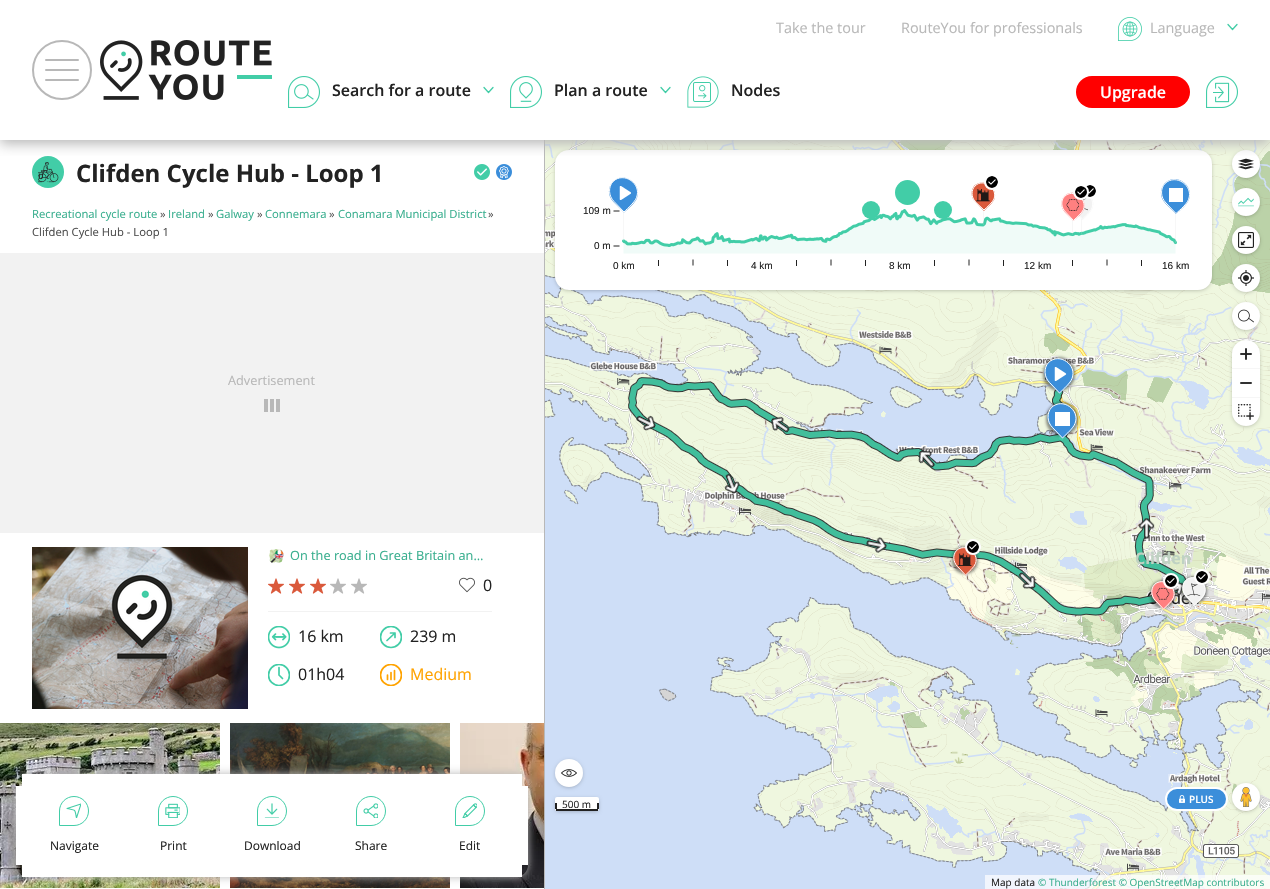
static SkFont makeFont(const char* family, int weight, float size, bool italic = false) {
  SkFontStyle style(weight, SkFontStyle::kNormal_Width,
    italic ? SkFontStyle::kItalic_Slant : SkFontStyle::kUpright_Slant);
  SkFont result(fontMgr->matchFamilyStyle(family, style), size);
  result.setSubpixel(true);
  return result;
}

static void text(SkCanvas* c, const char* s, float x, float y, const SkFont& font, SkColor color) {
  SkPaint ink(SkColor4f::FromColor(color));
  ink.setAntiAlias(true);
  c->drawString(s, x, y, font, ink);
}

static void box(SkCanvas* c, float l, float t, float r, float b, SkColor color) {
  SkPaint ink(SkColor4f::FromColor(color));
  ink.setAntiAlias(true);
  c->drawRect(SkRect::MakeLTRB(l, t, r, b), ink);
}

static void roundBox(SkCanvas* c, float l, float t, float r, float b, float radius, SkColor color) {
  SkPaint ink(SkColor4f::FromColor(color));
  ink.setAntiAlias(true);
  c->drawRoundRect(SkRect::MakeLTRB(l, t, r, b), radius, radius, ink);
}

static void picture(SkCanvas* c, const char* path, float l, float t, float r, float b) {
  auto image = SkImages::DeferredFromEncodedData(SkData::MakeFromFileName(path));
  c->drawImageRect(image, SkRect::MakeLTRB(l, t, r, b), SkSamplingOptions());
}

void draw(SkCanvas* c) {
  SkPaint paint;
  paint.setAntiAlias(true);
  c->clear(0xffffffff);
  paint.setColor(0xff42cda7);
  c->drawCircle(48, 172, 16, paint);
  picture(c, "img_07.png", 38, 162, 59, 183);
  box(c, 544, 140, 545, 889, 0xffb8b8b8);
  picture(c, "img_26.png", 545, 140, 1270, 889);
  paint.setColor(0x4d000000);
  paint.setMaskFilter(SkMaskFilter::MakeBlur(kNormal_SkBlurStyle, 2));
  c->drawRoundRect(SkRect::MakeLTRB(1233, 152, 1259, 178), 13, 13, paint);
  paint.setMaskFilter(nullptr);
  paint.setColor(0xffffffff);
  c->drawCircle(1246, 164, 14, paint);
  picture(c, "img_10.png", 1238, 158, 1254, 170);
  paint.setColor(0x4d000000);
  paint.setMaskFilter(SkMaskFilter::MakeBlur(kNormal_SkBlurStyle, 2));
  c->drawRoundRect(SkRect::MakeLTRB(556, 152, 1211, 290), 13, 13, paint);
  paint.setMaskFilter(nullptr);
  roundBox(c, 555, 150, 1212, 290, 14, 0xffffffff);
  c->save();
  c->clipRect(SkRect::MakeLTRB(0, 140, 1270, 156));
  paint.setColor(0xffb8b8b8);
  paint.setMaskFilter(SkMaskFilter::MakeBlur(kNormal_SkBlurStyle, 6));
  c->drawRect(SkRect::MakeLTRB(0, 4, 1270, 144), paint);
  paint.setMaskFilter(nullptr);
  c->restore();
  SkFont face1 = makeFont("Open Sans", 400, 14.4f);
  text(c, "Take the tour", 776, 33, face1, 0xffb8b8b8);
  text(c, "RouteYou for professionals", 901, 33, face1, 0xffb8b8b8);
  picture(c, "img_01.png", 1118, 17, 1142, 41);
  text(c, "Language", 1150, 33, face1, 0xffb8b8b8);
  paint.setStyle(SkPaint::kStroke_Style);
  paint.setStrokeWidth(1.3f);
  paint.setStrokeCap(SkPaint::kRound_Cap);
  paint.setStrokeJoin(SkPaint::kRound_Join);
  paint.setColor(0xff42cda7);
  c->drawPath(SkPathBuilder().moveTo(1237, 24.5f).lineTo(1232.5f, 29.5f).lineTo(1228, 24.5f).detach(), paint);
  paint.setStrokeWidth(2);
  paint.setStrokeCap(SkPaint::kButt_Cap);
  paint.setStrokeJoin(SkPaint::kMiter_Join);
  paint.setColor(0xffb8b8b8);
  c->drawCircle(62, 70, 29, paint);
  roundBox(c, 45, 59, 79, 61, 1, 0xffb8b8b8);
  roundBox(c, 45, 69, 79, 71, 1, 0xffb8b8b8);
  roundBox(c, 45, 79, 79, 81, 1, 0xffb8b8b8);
  picture(c, "img_02.png", 100, 40, 272, 100);
  picture(c, "img_03.png", 288, 76, 320, 108);
  SkFont face2 = makeFont("Open Sans", 600, 16);
  text(c, "Search for a route", 332, 96, face2, 0xff222222);
  paint.setStrokeWidth(1.3f);
  paint.setStrokeCap(SkPaint::kRound_Cap);
  paint.setStrokeJoin(SkPaint::kRound_Join);
  paint.setColor(0xff42cda7);
  c->drawPath(SkPathBuilder().moveTo(493, 87.5f).lineTo(488.5f, 92.5f).lineTo(484, 87.5f).detach(), paint);
  picture(c, "img_04.png", 510, 76, 542, 108);
  text(c, "Plan a route", 554, 96, face2, 0xff222222);
  c->drawPath(SkPathBuilder().moveTo(670, 87.5f).lineTo(665.5f, 92.5f).lineTo(661, 87.5f).detach(), paint);
  picture(c, "img_05.png", 687, 76, 719, 108);
  text(c, "Nodes", 731, 96, face2, 0xff222222);
  roundBox(c, 1076, 76, 1190, 108, 16, 0xffff0000);
  text(c, "Upgrade", 1100, 98, face2, 0xffffffff);
  picture(c, "img_06.png", 1206, 76, 1238, 108);
  SkFont face3 = makeFont("Open Sans", 700, 24);
  text(c, "Clifden Cycle Hub - Loop 1", 76, 182, face3, 0xff222222);
  picture(c, "img_08.png", 474, 164, 490, 180);
  picture(c, "img_09.png", 496, 164, 512, 180);
  SkFont face4 = makeFont("Open Sans", 400, 11.25f);
  text(c, "Recreational cycle route", 32, 218, face4, 0xff38ae8e);
  text(c, "»", 160, 218, face4, 0xff4d4d4d);
  text(c, "Ireland", 168, 218, face4, 0xff38ae8e);
  text(c, "»", 208, 218, face4, 0xff4d4d4d);
  text(c, "Galway", 216, 218, face4, 0xff38ae8e);
  text(c, "»", 257, 218, face4, 0xff4d4d4d);
  text(c, "Connemara", 265, 218, face4, 0xff38ae8e);
  text(c, "»", 329, 218, face4, 0xff4d4d4d);
  text(c, "Conamara Municipal District", 338, 218, face4, 0xff38ae8e);
  text(c, "»", 488, 218, face4, 0xff4d4d4d);
  text(c, "Clifden Cycle Hub - Loop 1", 32, 236, face4, 0xff4d4d4d);
  picture(c, "img_19.png", 622, 209, 1177, 254);
  paint.setStyle(SkPaint::kFill_Style);
  c->drawCircle(871, 210, 9, paint);
  c->drawCircle(943, 210, 9, paint);
  c->drawCircle(907.5f, 192.5f, 12.5f, paint);
  paint.setColor(0x4d000000);
  paint.setMaskFilter(SkMaskFilter::MakeBlur(kNormal_SkBlurStyle, 2));
  c->drawRoundRect(SkRect::MakeLTRB(1233, 190, 1259, 216), 13, 13, paint);
  paint.setMaskFilter(nullptr);
  paint.setColor(0xffffffff);
  c->drawCircle(1246, 202, 14, paint);
  picture(c, "img_11.png", 1238, 197, 1254, 207);
  paint.setColor(0xff3b8eda);
  c->drawPath(SkPathBuilder().moveTo(613, 181.5f).cubicTo(624, 170.5f, 642.5f, 184, 637, 198).cubicTo(635.5f, 202.5f, 628, 209, 624, 212.5f).lineTo(613.5f, 202).cubicTo(607.5f, 196, 607.5f, 187, 613, 181.5f).close().detach(), paint);
  paint.setStyle(SkPaint::kStroke_Style);
  paint.setStrokeWidth(1);
  paint.setStrokeCap(SkPaint::kButt_Cap);
  paint.setStrokeJoin(SkPaint::kMiter_Join);
  paint.setColor(0xffffffff);
  c->drawPath(SkPathBuilder().moveTo(613, 181.5f).cubicTo(624, 171, 642, 184, 636.5f, 197.5f).cubicTo(635, 202, 628, 208, 624, 212).lineTo(614, 201.5f).cubicTo(608.5f, 196, 608, 187, 613, 181.5f).close().detach(), paint);
  picture(c, "img_12.png", 619, 186, 631, 200);
  paint.setStyle(SkPaint::kFill_Style);
  paint.setColor(0xffda593b);
  c->drawPath(SkPathBuilder().moveTo(974.5f, 185.5f).cubicTo(983.5f, 177, 998.5f, 188, 994.5f, 199).cubicTo(993, 203, 987, 207.5f, 984, 211).lineTo(975.5f, 202).cubicTo(970.5f, 197.5f, 970.5f, 190, 974.5f, 185.5f).close().detach(), paint);
  paint.setStyle(SkPaint::kStroke_Style);
  paint.setColor(0xffffffff);
  c->drawPath(SkPathBuilder().moveTo(975, 186).cubicTo(983.5f, 177.5f, 998, 188, 994, 199).cubicTo(992.5f, 202.5f, 987, 207, 984, 210).lineTo(975.5f, 202).cubicTo(971, 197, 971, 190, 975, 186).close().detach(), paint);
  picture(c, "img_13.png", 986, 176, 998, 188);
  picture(c, "img_14.png", 976, 189, 990, 202);
  paint.setStrokeWidth(2);
  c->drawCircle(992, 182, 7, paint);
  paint.setStyle(SkPaint::kFill_Style);
  paint.setColor(0xfff2f2f2);
  c->drawPath(SkPathBuilder().moveTo(1073, 194.5f).cubicTo(1082, 186, 1097, 197, 1092.5f, 208).cubicTo(1091, 212, 1085.5f, 217, 1082.5f, 220).lineTo(1073.5f, 211).cubicTo(1069, 206.5f, 1068.5f, 199, 1073, 194.5f).close().detach(), paint);
  paint.setStyle(SkPaint::kStroke_Style);
  paint.setStrokeWidth(1);
  paint.setColor(0xffffffff);
  c->drawPath(SkPathBuilder().moveTo(1073.5f, 195).cubicTo(1082, 186.5f, 1096, 197.5f, 1092, 208).cubicTo(1091, 211.5f, 1085.5f, 216, 1082.5f, 219).lineTo(1074, 211).cubicTo(1069.5f, 206.5f, 1069, 199, 1073.5f, 195).close().detach(), paint);
  picture(c, "img_15.png", 1084, 185, 1096, 197);
  picture(c, "img_16.png", 1082, 198, 1088, 211);
  paint.setStrokeWidth(2);
  c->drawCircle(1090, 191, 7, paint);
  paint.setStyle(SkPaint::kFill_Style);
  paint.setColor(0xff3b8eda);
  c->drawPath(SkPathBuilder().moveTo(1165, 183).cubicTo(1176, 172, 1194.5f, 185.5f, 1189, 199.5f).cubicTo(1187.5f, 204, 1180, 210.5f, 1176, 214).lineTo(1165.5f, 203.5f).cubicTo(1159.5f, 197.5f, 1159.5f, 188.5f, 1165, 183).close().detach(), paint);
  paint.setStyle(SkPaint::kStroke_Style);
  paint.setStrokeWidth(1);
  paint.setColor(0xffffffff);
  c->drawPath(SkPathBuilder().moveTo(1165, 183.5f).cubicTo(1176, 173, 1194, 186, 1188.5f, 199.5f).cubicTo(1187, 204, 1180, 210, 1176, 213.5f).lineTo(1166, 203).cubicTo(1160.5f, 197.5f, 1160, 188.5f, 1165, 183.5f).close().detach(), paint);
  box(c, 1169, 188, 1183, 202, 0xffffffff);
  paint.setStyle(SkPaint::kFill_Style);
  paint.setColor(0xffff8080);
  c->drawPath(SkPathBuilder().moveTo(1064.5f, 196).cubicTo(1073, 187, 1088, 198.5f, 1084, 209.5f).cubicTo(1082.5f, 213.5f, 1076.5f, 218, 1073.5f, 221).lineTo(1065, 212.5f).cubicTo(1060.5f, 207.5f, 1060, 200.5f, 1064.5f, 196).close().detach(), paint);
  paint.setStyle(SkPaint::kStroke_Style);
  paint.setColor(0xffffffff);
  c->drawPath(SkPathBuilder().moveTo(1064.5f, 196.5f).cubicTo(1073, 188, 1087.5f, 198.5f, 1083.5f, 209.5f).cubicTo(1082, 213, 1076.5f, 217.5f, 1073.5f, 220.5f).lineTo(1065.5f, 212).cubicTo(1061, 207.5f, 1060.5f, 200.5f, 1064.5f, 196.5f).close().detach(), paint);
  picture(c, "img_17.png", 1075, 186, 1087, 198);
  picture(c, "img_18.png", 1066, 199, 1079, 211);
  paint.setStrokeWidth(2);
  c->drawCircle(1081, 192, 7, paint);
  box(c, 658, 260, 659, 266, 0xff222222);
  paint.setStrokeWidth(1);
  paint.setColor(0xff222222);
  c->drawPath(SkPathBuilder().moveTo(693, 259.5f).lineTo(693, 265.5f).detach(), paint);
  box(c, 727, 260, 728, 266, 0xff222222);
  box(c, 796, 260, 797, 266, 0xff222222);
  c->drawPath(SkPathBuilder().moveTo(831, 259.5f).lineTo(831, 265.5f).detach(), paint);
  box(c, 865, 260, 866, 266, 0xff222222);
  box(c, 934, 260, 935, 266, 0xff222222);
  c->drawPath(SkPathBuilder().moveTo(969, 259.5f).lineTo(969, 265.5f).detach(), paint);
  box(c, 1003, 260, 1004, 266, 0xff222222);
  box(c, 1072, 260, 1073, 266, 0xff222222);
  c->drawPath(SkPathBuilder().moveTo(1107, 259.5f).lineTo(1107, 265.5f).detach(), paint);
  box(c, 1141, 260, 1142, 266, 0xff222222);
  c->drawPath(SkPathBuilder().moveTo(619.5f, 246).lineTo(613.5f, 246).detach(), paint);
  c->drawPath(SkPathBuilder().moveTo(619.5f, 211).lineTo(613.5f, 211).detach(), paint);
  SkFont face5 = makeFont("Liberation Sans", 400, 10);
  text(c, "109 m", 583, 214, face5, 0xff222222);
  text(c, "0 m", 594, 249, face5, 0xff222222);
  text(c, "0 km", 613, 269, face5, 0xff222222);
  text(c, "4 km", 751, 269, face5, 0xff222222);
  text(c, "8 km", 889, 269, face5, 0xff222222);
  text(c, "12 km", 1024, 269, face5, 0xff222222);
  text(c, "16 km", 1162, 269, face5, 0xff222222);
  paint.setStyle(SkPaint::kFill_Style);
  paint.setColor(0x4d000000);
  paint.setMaskFilter(SkMaskFilter::MakeBlur(kNormal_SkBlurStyle, 2));
  c->drawRoundRect(SkRect::MakeLTRB(1233, 228, 1259, 254), 13, 13, paint);
  paint.setMaskFilter(nullptr);
  paint.setColor(0xffffffff);
  c->drawCircle(1246, 240, 14, paint);
  picture(c, "img_20.png", 1238, 232, 1254, 248);
  paint.setColor(0x4d000000);
  paint.setMaskFilter(SkMaskFilter::MakeBlur(kNormal_SkBlurStyle, 2));
  c->drawRoundRect(SkRect::MakeLTRB(1233, 266, 1259, 292), 13, 13, paint);
  paint.setMaskFilter(nullptr);
  paint.setColor(0xffffffff);
  c->drawCircle(1246, 278, 14, paint);
  picture(c, "img_21.png", 1238, 270, 1254, 286);
  paint.setColor(0x4d000000);
  paint.setMaskFilter(SkMaskFilter::MakeBlur(kNormal_SkBlurStyle, 2));
  c->drawRoundRect(SkRect::MakeLTRB(1233, 304, 1259, 330), 13, 13, paint);
  paint.setMaskFilter(nullptr);
  paint.setColor(0xffffffff);
  c->drawCircle(1246, 316, 14, paint);
  picture(c, "img_22.png", 1238, 309, 1254, 323);
  paint.setColor(0x4d000000);
  paint.setMaskFilter(SkMaskFilter::MakeBlur(kNormal_SkBlurStyle, 2));
  c->drawRoundRect(SkRect::MakeLTRB(1233, 342, 1259, 426), 13, 13, paint);
  paint.setMaskFilter(nullptr);
  roundBox(c, 1232, 340, 1260, 426, 14, 0xffffffff);
  picture(c, "img_23.png", 1240, 348, 1252, 360);
  box(c, 1232, 368, 1260, 369, 0xfff6f6f6);
  picture(c, "img_24.png", 1240, 382, 1252, 384);
  box(c, 1232, 397, 1260, 398, 0xfff6f6f6);
  picture(c, "img_25.png", 1238, 404, 1254, 420);
  paint.setColor(0x80222222);
  paint.setMaskFilter(SkMaskFilter::MakeBlur(kNormal_SkBlurStyle, 1.5f));
  c->drawRoundRect(SkRect::MakeLTRB(1043, 357, 1075, 391), 16, 16, paint);
  paint.setMaskFilter(nullptr);
  paint.setColor(0xff3b8eda);
  c->drawPath(SkPathBuilder().moveTo(1048.5f, 362.5f).cubicTo(1059.5f, 351.5f, 1078, 365, 1072.5f, 379).cubicTo(1071, 383.5f, 1063.5f, 390, 1059.5f, 393.5f).lineTo(1049, 383).cubicTo(1043, 377, 1043, 368, 1048.5f, 362.5f).close().detach(), paint);
  paint.setStyle(SkPaint::kStroke_Style);
  paint.setColor(0xffffffff);
  c->drawPath(SkPathBuilder().moveTo(1048.5f, 362.5f).cubicTo(1059.5f, 352, 1077.5f, 365, 1072, 378.5f).cubicTo(1070.5f, 383, 1063.5f, 389, 1059.5f, 393).lineTo(1049.5f, 382.5f).cubicTo(1044, 377, 1043.5f, 368, 1048.5f, 362.5f).close().detach(), paint);
  picture(c, "img_27.png", 1054, 367, 1067, 381);
  paint.setStyle(SkPaint::kFill_Style);
  paint.setColor(0x80222222);
  paint.setMaskFilter(SkMaskFilter::MakeBlur(kNormal_SkBlurStyle, 1.5f));
  c->drawRoundRect(SkRect::MakeLTRB(1046, 402, 1078, 436), 16, 16, paint);
  paint.setMaskFilter(nullptr);
  paint.setColor(0xff3b8eda);
  c->drawPath(SkPathBuilder().moveTo(1051.5f, 407.5f).cubicTo(1062.5f, 396.5f, 1081, 410, 1075.5f, 424).cubicTo(1074, 428.5f, 1066.5f, 435, 1062.5f, 438.5f).lineTo(1052, 428).cubicTo(1046, 422, 1046, 413, 1051.5f, 407.5f).close().detach(), paint);
  paint.setStyle(SkPaint::kStroke_Style);
  paint.setColor(0xffffffff);
  c->drawPath(SkPathBuilder().moveTo(1051.5f, 407.5f).cubicTo(1062.5f, 397, 1080.5f, 410, 1075, 423.5f).cubicTo(1073.5f, 428, 1066.5f, 434, 1062.5f, 438).lineTo(1052.5f, 427.5f).cubicTo(1047, 422, 1046.5f, 413, 1051.5f, 407.5f).close().detach(), paint);
  box(c, 1055, 412, 1070, 426, 0xffffffff);
  paint.setStyle(SkPaint::kFill_Style);
  paint.setColor(0x80222222);
  paint.setMaskFilter(SkMaskFilter::MakeBlur(kNormal_SkBlurStyle, 1.5f));
  c->drawRoundRect(SkRect::MakeLTRB(952, 546, 978, 574), 13, 13, paint);
  paint.setMaskFilter(nullptr);
  paint.setColor(0xffda593b);
  c->drawPath(SkPathBuilder().moveTo(956.5f, 550.5f).cubicTo(965, 541.5f, 980, 552.5f, 976, 564).cubicTo(974.5f, 568, 969, 572.5f, 965.5f, 575.5f).lineTo(957, 567).cubicTo(952.5f, 562, 952, 555, 956.5f, 550.5f).close().detach(), paint);
  paint.setStyle(SkPaint::kStroke_Style);
  paint.setColor(0xffffffff);
  c->drawPath(SkPathBuilder().moveTo(956.5f, 550.5f).cubicTo(965, 542.5f, 979.5f, 553, 975.5f, 563.5f).cubicTo(974, 567.5f, 968.5f, 572, 965.5f, 575).lineTo(957.5f, 566.5f).cubicTo(953, 562, 952.5f, 555, 956.5f, 550.5f).close().detach(), paint);
  picture(c, "img_28.png", 967, 541, 979, 553);
  picture(c, "img_29.png", 958, 553, 972, 566);
  paint.setStrokeWidth(2);
  c->drawCircle(973, 547, 7, paint);
  SkFont face6 = makeFont("Open Sans", 700, 16);
  text(c, "Clifden", 1135, 564, face6, 0xffbfd2c2);
  paint.setStyle(SkPaint::kFill_Style);
  paint.setColor(0x80222222);
  paint.setMaskFilter(SkMaskFilter::MakeBlur(kNormal_SkBlurStyle, 1.5f));
  c->drawRoundRect(SkRect::MakeLTRB(1150, 580, 1176, 608), 13, 13, paint);
  paint.setMaskFilter(nullptr);
  paint.setColor(0xffff8080);
  c->drawPath(SkPathBuilder().moveTo(1154.5f, 584.5f).cubicTo(1163, 575.5f, 1178, 586.5f, 1174, 598).cubicTo(1172.5f, 602, 1167, 606.5f, 1163.5f, 609.5f).lineTo(1155, 601).cubicTo(1150.5f, 596, 1150, 589, 1154.5f, 584.5f).close().detach(), paint);
  paint.setStyle(SkPaint::kStroke_Style);
  paint.setStrokeWidth(1);
  paint.setColor(0xffffffff);
  c->drawPath(SkPathBuilder().moveTo(1154.5f, 584.5f).cubicTo(1163, 576.5f, 1177.5f, 587, 1173.5f, 597.5f).cubicTo(1172, 601.5f, 1166.5f, 606, 1163.5f, 609).lineTo(1155.5f, 600.5f).cubicTo(1151, 596, 1150.5f, 589, 1154.5f, 584.5f).close().detach(), paint);
  picture(c, "img_30.png", 1165, 575, 1177, 587);
  picture(c, "img_31.png", 1156, 587, 1170, 600);
  paint.setStrokeWidth(2);
  c->drawCircle(1171, 581, 7, paint);
  paint.setStyle(SkPaint::kFill_Style);
  paint.setColor(0x80222222);
  paint.setMaskFilter(SkMaskFilter::MakeBlur(kNormal_SkBlurStyle, 1.5f));
  c->drawRoundRect(SkRect::MakeLTRB(1181, 576, 1207, 604), 13, 13, paint);
  paint.setMaskFilter(nullptr);
  paint.setColor(0xfff2f2f2);
  c->drawPath(SkPathBuilder().moveTo(1185.5f, 580.5f).cubicTo(1194, 571.5f, 1209, 582.5f, 1205, 594).cubicTo(1203.5f, 598, 1198, 602.5f, 1194.5f, 605.5f).lineTo(1186, 597).cubicTo(1181.5f, 592, 1181, 585, 1185.5f, 580.5f).close().detach(), paint);
  paint.setStyle(SkPaint::kStroke_Style);
  paint.setStrokeWidth(1);
  paint.setColor(0xffffffff);
  c->drawPath(SkPathBuilder().moveTo(1185.5f, 580.5f).cubicTo(1194, 572.5f, 1208.5f, 583, 1204.5f, 593.5f).cubicTo(1203, 597.5f, 1197.5f, 602, 1194.5f, 605).lineTo(1186.5f, 596.5f).cubicTo(1182, 592, 1181.5f, 585, 1185.5f, 580.5f).close().detach(), paint);
  picture(c, "img_32.png", 1196, 571, 1208, 583);
  picture(c, "img_33.png", 1187, 583, 1201, 596);
  paint.setStrokeWidth(2);
  c->drawCircle(1202, 577, 7, paint);
  paint.setStyle(SkPaint::kFill_Style);
  paint.setColor(0x4d000000);
  paint.setMaskFilter(SkMaskFilter::MakeBlur(kNormal_SkBlurStyle, 2));
  c->drawRoundRect(SkRect::MakeLTRB(556, 761, 582, 787), 13, 13, paint);
  paint.setMaskFilter(nullptr);
  paint.setColor(0xffffffff);
  c->drawCircle(569, 773, 14, paint);
  picture(c, "img_34.png", 561, 769, 577, 777);
  paint.setColor(0x4d000000);
  paint.setMaskFilter(SkMaskFilter::MakeBlur(kNormal_SkBlurStyle, 2));
  c->drawRoundRect(SkRect::MakeLTRB(556, 799, 598, 811), 1, 1, paint);
  paint.setMaskFilter(nullptr);
  roundBox(c, 555, 797, 599, 811, 2, 0xffffffff);
  box(c, 556, 809, 598, 811, 0xff222222);
  box(c, 555, 803, 557, 809, 0xff222222);
  SkFont face7 = makeFont("Open Sans", 400, 10);
  text(c, "500 m", 562, 808, face7, 0xff222222);
  box(c, 597, 803, 599, 809, 0xff222222);
  paint.setMaskFilter(SkMaskFilter::MakeBlur(kNormal_SkBlurStyle, 2));
  c->drawRoundRect(SkRect::MakeLTRB(1233, 785, 1259, 811), 13, 13, paint);
  paint.setMaskFilter(nullptr);
  paint.setColor(0xffffffff);
  c->drawCircle(1246, 797, 14, paint);
  paint.setColor(0xff3b8eda);
  c->drawRoundRect(SkRect::MakeLTRB(1166, 788, 1227, 810), 11, 11, paint);
  paint.setStyle(SkPaint::kStroke_Style);
  paint.setColor(0xffffffff);
  c->drawRoundRect(SkRect::MakeLTRB(1166, 788, 1227, 810), 11, 11, paint);
  picture(c, "img_35.png", 1179, 795, 1185, 803);
  SkFont face8 = makeFont("Open Sans", 600, 10);
  text(c, "PLUS", 1189, 803, face8, 0xffffffff);
  picture(c, "img_36.png", 1240, 787, 1252, 807);
  box(c, 985, 875, 1270, 889, 0xb3ffffff);
  text(c, "Map data", 991, 886, face7, 0xff222222);
  text(c, "© Thunderforest © OpenStreetMap contributors", 1038, 886, face7, 0xff38ae8e);
  box(c, 0, 253, 544, 533, 0xfff2f2f2);
  SkFont face9 = makeFont("Open Sans", 400, 12.75f);
  text(c, "Advertisement", 228, 385, face9, 0xffb8b8b8);
  box(c, 270, 399, 274, 412, 0xffb8b8b8);
  box(c, 264, 399, 268, 412, 0xffb8b8b8);
  box(c, 276, 399, 280, 412, 0xffb8b8b8);
  picture(c, "img_37.png", 32, 547, 248, 709);
  picture(c, "img_38.png", 269, 549, 284, 563);
  text(c, "On the road in Great Britain an…", 290, 560, face9, 0xff38ae8e);
  picture(c, "img_39.png", 268, 578, 284, 594);
  picture(c, "img_39.png", 289, 578, 305, 594);
  picture(c, "img_39.png", 310, 578, 326, 594);
  picture(c, "img_40.png", 330, 578, 346, 594);
  picture(c, "img_40.png", 351, 578, 367, 594);
  picture(c, "img_41.png", 459, 577, 475, 593);
  SkFont face10 = makeFont("Open Sans", 400, 16);
  text(c, "0", 483, 591, face10, 0xff222222);
  box(c, 268, 611, 492, 612, 0xfff2f2f2);
  picture(c, "img_42.png", 268, 626, 290, 649);
  text(c, "16 km", 298, 642, face10, 0xff222222);
  c->save();
  c->clipRect(SkRect::MakeLTRB(380, 626, 402, 649));
  paint.setStrokeWidth(1.7f);
  paint.setColor(0xff42cda7);
  c->drawCircle(391, 637, 10.5f, paint);
  c->restore();
  paint.setStrokeCap(SkPaint::kRound_Cap);
  paint.setStrokeJoin(SkPaint::kRound_Join);
  c->drawPath(SkPathBuilder().moveTo(387, 640.5f).lineTo(395, 633).lineTo(390.5f, 633).moveTo(387, 640.5f).lineTo(395, 633).lineTo(395, 637.5f).detach(), paint);
  text(c, "239 m", 410, 642, face10, 0xff222222);
  c->save();
  c->clipRect(SkRect::MakeLTRB(268, 664, 290, 686));
  paint.setStrokeCap(SkPaint::kButt_Cap);
  paint.setStrokeJoin(SkPaint::kMiter_Join);
  c->drawCircle(279, 675, 10.5f, paint);
  c->restore();
  paint.setStrokeCap(SkPaint::kRound_Cap);
  c->drawPath(SkPathBuilder().moveTo(279, 675).lineTo(279, 667.5f).moveTo(282.5f, 678.5f).lineTo(279, 675).detach(), paint);
  text(c, "01h04", 298, 680, face10, 0xff222222);
  c->save();
  c->clipRect(SkRect::MakeLTRB(380, 664, 402, 686));
  paint.setStrokeCap(SkPaint::kButt_Cap);
  paint.setColor(0xffffa300);
  c->drawCircle(391, 675, 10.5f, paint);
  c->restore();
  paint.setStrokeCap(SkPaint::kRound_Cap);
  paint.setStrokeJoin(SkPaint::kRound_Join);
  c->drawPath(SkPathBuilder().moveTo(394.5f, 670.5f).lineTo(394.5f, 679.5f).moveTo(387.5f, 675).lineTo(387.5f, 679.5f).moveTo(391, 672.5f).lineTo(391, 679.5f).detach(), paint);
  text(c, "Medium", 410, 680, face10, 0xffffa300);
  picture(c, "img_43.png", 0, 723, 220, 888);
  picture(c, "img_44.png", 230, 723, 450, 888);
  picture(c, "img_45.png", 460, 723, 544, 888);
  paint.setStyle(SkPaint::kFill_Style);
  paint.setColor(0x66222222);
  paint.setMaskFilter(SkMaskFilter::MakeBlur(kNormal_SkBlurStyle, 4));
  c->drawRoundRect(SkRect::MakeLTRB(492, 789, 524, 821), 16, 16, paint);
  paint.setMaskFilter(nullptr);
  c->save();
  c->clipPath(SkPathBuilder(SkPathFillType::kEvenOdd).moveTo(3, 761).lineTo(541, 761).lineTo(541, 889).lineTo(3, 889).close().moveTo(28, 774).lineTo(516, 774).cubicTo(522.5f, 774, 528, 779.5f, 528, 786).lineTo(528, 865).cubicTo(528, 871.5f, 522.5f, 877, 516, 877).lineTo(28, 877).cubicTo(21.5f, 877, 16, 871.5f, 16, 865).lineTo(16, 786).cubicTo(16, 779.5f, 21.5f, 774, 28, 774).close().detach(), true);
  paint.setColor(0xffb8b8b8);
  paint.setMaskFilter(SkMaskFilter::MakeBlur(kNormal_SkBlurStyle, 4));
  c->drawRoundRect(SkRect::MakeLTRB(16, 774, 528, 877), 12, 12, paint);
  paint.setMaskFilter(nullptr);
  c->restore();
  paint.setColor(0xffffffff);
  c->drawPath(SkPathBuilder().moveTo(28, 786).lineTo(528, 786).lineTo(528, 865).lineTo(16, 865).lineTo(16, 786).close().detach(), paint);
  box(c, 22, 774, 522, 786, 0xffffffff);
  box(c, 22, 865, 522, 877, 0xffffffff);
  paint.setStyle(SkPaint::kStroke_Style);
  paint.setStrokeWidth(1);
  paint.setStrokeCap(SkPaint::kButt_Cap);
  paint.setStrokeJoin(SkPaint::kMiter_Join);
  paint.setColor(0xff42cda7);
  c->drawPath(SkPathBuilder().moveTo(74, 796.5f).cubicTo(82, 796.5f, 88.5f, 803, 88.5f, 811).cubicTo(88.5f, 819, 82, 825.5f, 74, 825.5f).lineTo(59.5f, 825.5f).lineTo(59.5f, 811).cubicTo(59.5f, 803, 66, 796.5f, 74, 796.5f).close().detach(), paint);
  c->save();
  c->clipRect(SkRect::MakeLTRB(66, 803, 81, 818));
  paint.setStrokeWidth(1.1f);
  paint.setStrokeCap(SkPaint::kRound_Cap);
  paint.setStrokeJoin(SkPaint::kRound_Join);
  c->drawPath(SkPathBuilder().moveTo(76.5f, 818).cubicTo(74.5f, 808.5f, 76.5f, 810.5f, 67, 808.5f).lineTo(81, 804).close().detach(), paint);
  c->restore();
  SkFont face11 = makeFont("Open Sans", 400, 12);
  text(c, "Navigate", 50, 850, face11, 0xff222222);
  paint.setStrokeWidth(1);
  paint.setStrokeCap(SkPaint::kButt_Cap);
  paint.setStrokeJoin(SkPaint::kMiter_Join);
  c->drawPath(SkPathBuilder().moveTo(173, 796.5f).cubicTo(181, 796.5f, 187.5f, 803, 187.5f, 811).cubicTo(187.5f, 819, 181, 825.5f, 173, 825.5f).lineTo(158.5f, 825.5f).lineTo(158.5f, 811).cubicTo(158.5f, 803, 165, 796.5f, 173, 796.5f).close().detach(), paint);
  picture(c, "img_46.png", 165, 803, 180, 818);
  text(c, "Print", 160, 850, face11, 0xff222222);
  c->drawPath(SkPathBuilder().moveTo(272, 796.5f).cubicTo(280, 796.5f, 286.5f, 803, 286.5f, 811).cubicTo(286.5f, 819, 280, 825.5f, 272, 825.5f).lineTo(257.5f, 825.5f).lineTo(257.5f, 811).cubicTo(257.5f, 803, 264, 796.5f, 272, 796.5f).close().detach(), paint);
  picture(c, "img_47.png", 264, 803, 279, 818);
  text(c, "Download", 244, 850, face11, 0xff222222);
  c->drawPath(SkPathBuilder().moveTo(371, 796.5f).cubicTo(379, 796.5f, 385.5f, 803, 385.5f, 811).cubicTo(385.5f, 819, 379, 825.5f, 371, 825.5f).lineTo(356.5f, 825.5f).lineTo(356.5f, 811).cubicTo(356.5f, 803, 363, 796.5f, 371, 796.5f).close().detach(), paint);
  picture(c, "img_48.png", 363, 803, 378, 818);
  text(c, "Share", 355, 850, face11, 0xff222222);
  c->drawPath(SkPathBuilder().moveTo(470, 796.5f).cubicTo(478, 796.5f, 484.5f, 803, 484.5f, 811).cubicTo(484.5f, 819, 478, 825.5f, 470, 825.5f).lineTo(455.5f, 825.5f).lineTo(455.5f, 811).cubicTo(455.5f, 803, 462, 796.5f, 470, 796.5f).close().detach(), paint);
  picture(c, "img_49.png", 462, 803, 477, 818);
  text(c, "Edit", 459, 850, face11, 0xff222222);
}
